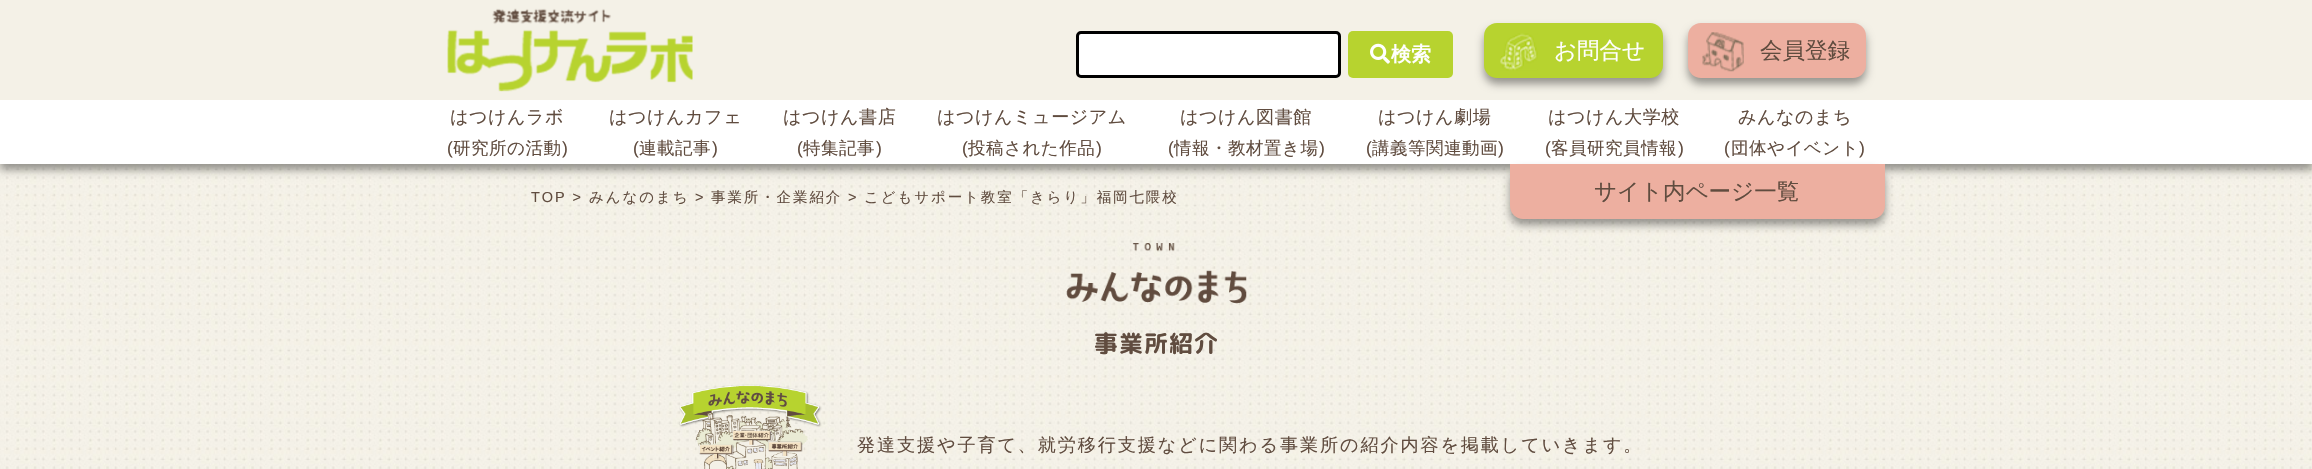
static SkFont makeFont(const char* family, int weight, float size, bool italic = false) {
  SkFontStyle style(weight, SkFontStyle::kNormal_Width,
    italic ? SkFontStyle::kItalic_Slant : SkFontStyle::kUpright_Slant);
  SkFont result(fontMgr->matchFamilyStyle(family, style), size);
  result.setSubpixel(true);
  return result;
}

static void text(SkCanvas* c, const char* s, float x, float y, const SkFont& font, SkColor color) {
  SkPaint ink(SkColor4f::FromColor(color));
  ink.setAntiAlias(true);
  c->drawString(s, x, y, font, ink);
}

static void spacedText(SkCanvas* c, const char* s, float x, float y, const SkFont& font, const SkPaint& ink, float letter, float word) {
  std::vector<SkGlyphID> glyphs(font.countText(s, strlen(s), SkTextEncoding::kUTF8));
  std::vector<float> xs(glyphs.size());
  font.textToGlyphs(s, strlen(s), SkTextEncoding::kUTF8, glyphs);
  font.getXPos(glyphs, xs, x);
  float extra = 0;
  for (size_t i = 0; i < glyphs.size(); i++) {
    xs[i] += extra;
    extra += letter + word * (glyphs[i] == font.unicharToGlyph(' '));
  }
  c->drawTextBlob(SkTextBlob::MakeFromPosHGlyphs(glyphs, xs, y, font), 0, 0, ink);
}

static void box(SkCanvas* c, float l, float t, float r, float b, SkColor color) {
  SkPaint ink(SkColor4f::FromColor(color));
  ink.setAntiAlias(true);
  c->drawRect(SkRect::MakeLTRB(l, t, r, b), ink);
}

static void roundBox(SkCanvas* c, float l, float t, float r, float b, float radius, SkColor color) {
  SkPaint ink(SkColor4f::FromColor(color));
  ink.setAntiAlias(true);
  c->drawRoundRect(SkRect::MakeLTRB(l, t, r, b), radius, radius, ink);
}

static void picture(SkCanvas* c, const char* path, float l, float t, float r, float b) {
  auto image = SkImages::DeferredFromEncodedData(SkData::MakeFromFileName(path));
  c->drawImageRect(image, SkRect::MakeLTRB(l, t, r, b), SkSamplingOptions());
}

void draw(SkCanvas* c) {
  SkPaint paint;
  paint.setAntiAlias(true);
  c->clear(0xffffffff);
  picture(c, "img_05.png", 0, 164, 2312, 469);
  paint.setColor(0x63000000);
  paint.setMaskFilter(SkMaskFilter::MakeBlur(kNormal_SkBlurStyle, 4));
  c->drawRect(SkRect::MakeLTRB(0, 106, 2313, 170), paint);
  paint.setMaskFilter(nullptr);
  box(c, 0, 0, 2312, 100, 0xfff4f1e7);
  picture(c, "img_01.png", 447, 8, 693, 92);
  paint.setColor(0xffffffff);
  c->drawRoundRect(SkRect::MakeLTRB(1077.5f, 32.5f, 1339.5f, 76.5f), 3.5f, 3.5f, paint);
  paint.setStyle(SkPaint::kStroke_Style);
  paint.setStrokeWidth(3);
  paint.setColor(0xff000000);
  c->drawRoundRect(SkRect::MakeLTRB(1077.5f, 32.5f, 1339.5f, 76.5f), 3.5f, 3.5f, paint);
  roundBox(c, 1348, 31, 1453, 78, 5, 0xffb7d32f);
  picture(c, "img_02.png", 1370, 43, 1390, 64);
  SkFont face1 = makeFont("WenQuanYi Zen Hei", 700, 20);
  text(c, "検索", 1391, 61, face1, 0xffffffff);
  paint.setStyle(SkPaint::kFill_Style);
  paint.setColor(0x63000000);
  paint.setMaskFilter(SkMaskFilter::MakeBlur(kNormal_SkBlurStyle, 4));
  c->drawRoundRect(SkRect::MakeLTRB(1484, 29, 1663, 84), 13, 13, paint);
  paint.setMaskFilter(nullptr);
  roundBox(c, 1484, 23, 1663, 78, 13, 0xffb7d32f);
  picture(c, "img_03.png", 1500, 33, 1538, 71);
  SkFont face2 = makeFont("WenQuanYi Zen Hei", 500, 22.5f);
  text(c, "お問合せ", 1554, 58, face2, 0xffffffff);
  paint.setMaskFilter(SkMaskFilter::MakeBlur(kNormal_SkBlurStyle, 4));
  c->drawRoundRect(SkRect::MakeLTRB(1688, 29, 1866, 84), 13, 13, paint);
  paint.setMaskFilter(nullptr);
  roundBox(c, 1688, 23, 1866, 78, 13, 0xffedafa0);
  picture(c, "img_04.png", 1702, 32, 1744, 72);
  text(c, "会員登録", 1760, 58, face2, 0xff604c3f);
  box(c, 0, 100, 2312, 164, 0xffffffff);
  SkFont face3 = makeFont("WenQuanYi Zen Hei", 500, 18.1f);
  paint.setColor(0xff604c3f);
  spacedText(c, "はつけんラボ", 450, 123, face3, paint, 0.5f, 0);
  SkFont face4 = makeFont("Liberation Sans", 400, 17.5f);
  spacedText(c, "(", 447, 154, face4, paint, 0.5f, 0);
  SkFont face5 = makeFont("WenQuanYi Zen Hei", 500, 17.5f);
  spacedText(c, "研究所の活動", 453, 154, face5, paint, 0.5f, 0);
  spacedText(c, ")", 562, 154, face4, paint, 0.5f, 0);
  spacedText(c, "はつけんカフェ", 609, 123, face3, paint, 0.5f, 0);
  spacedText(c, "(", 633, 154, face4, paint, 0.5f, 0);
  spacedText(c, "連載記事", 639, 154, face5, paint, 0.5f, 0);
  spacedText(c, ")", 712, 154, face4, paint, 0.5f, 0);
  spacedText(c, "はつけん書店", 783, 123, face3, paint, 0.5f, 0);
  spacedText(c, "(", 797, 154, face4, paint, 0.5f, 0);
  spacedText(c, "特集記事", 803, 154, face5, paint, 0.5f, 0);
  spacedText(c, ")", 876, 154, face4, paint, 0.5f, 0);
  spacedText(c, "はつけんミュージアム", 937, 123, face3, paint, 0.5f, 0);
  spacedText(c, "(", 962, 154, face4, paint, 0.5f, 0);
  spacedText(c, "投稿された作品", 968, 154, face5, paint, 0.5f, 0);
  spacedText(c, ")", 1096, 154, face4, paint, 0.5f, 0);
  spacedText(c, "はつけん図書館", 1180, 123, face3, paint, 0.5f, 0);
  spacedText(c, "(", 1168, 154, face4, paint, 0.5f, 0);
  spacedText(c, "情報・教材置き場", 1174, 154, face5, paint, 0.5f, 0);
  spacedText(c, ")", 1319, 154, face4, paint, 0.5f, 0);
  spacedText(c, "はつけん劇場", 1378, 123, face3, paint, 0.5f, 0);
  spacedText(c, "(", 1366, 154, face4, paint, 0.5f, 0);
  spacedText(c, "講義等関連動画", 1372, 154, face5, paint, 0.5f, 0);
  spacedText(c, ")", 1498, 154, face4, paint, 0.5f, 0);
  spacedText(c, "はつけん大学校", 1548, 123, face3, paint, 0.5f, 0);
  spacedText(c, "(", 1545, 154, face4, paint, 0.5f, 0);
  spacedText(c, "客員研究員情報", 1551, 154, face5, paint, 0.5f, 0);
  spacedText(c, ")", 1678, 154, face4, paint, 0.5f, 0);
  spacedText(c, "みんなのまち", 1738, 123, face3, paint, 0.5f, 0);
  spacedText(c, "(", 1724, 154, face4, paint, 0.5f, 0);
  spacedText(c, "団体やイベント", 1731, 154, face5, paint, 0.5f, 0);
  spacedText(c, ")", 1859, 154, face4, paint, 0.5f, 0);
  paint.setColor(0x63000000);
  paint.setMaskFilter(SkMaskFilter::MakeBlur(kNormal_SkBlurStyle, 4));
  c->drawRoundRect(SkRect::MakeLTRB(1510, 170, 1885, 225), 13, 13, paint);
  paint.setMaskFilter(nullptr);
  paint.setColor(0xffedafa0);
  c->drawPath(SkPathBuilder().moveTo(1510, 164).lineTo(1885, 164).lineTo(1885, 206).cubicTo(1885, 213, 1879, 219, 1872, 219).lineTo(1523, 219).cubicTo(1516, 219, 1510, 213, 1510, 206).close().detach(), paint);
  text(c, "サイト内ページ一覧", 1594, 199, face2, 0xff604c3f);
  SkFont face6 = makeFont("Liberation Sans", 400, 14.5f);
  paint.setColor(0xff604c3f);
  spacedText(c, "TOP >", 531, 202, face6, paint, 1.9f, 0);
  SkFont face7 = makeFont("WenQuanYi Zen Hei", 500, 14.5f);
  spacedText(c, "みんなのまち", 589, 202, face7, paint, 1.9f, 0);
  spacedText(c, ">", 695, 202, face6, paint, 1.9f, 0);
  spacedText(c, "事業所・企業紹介", 711, 202, face7, paint, 1.9f, 0);
  spacedText(c, ">", 848, 202, face6, paint, 1.9f, 0);
  spacedText(c, "こどもサポート教室「きらり」福岡七隈校", 864, 202, face7, paint, 1.9f, 0);
  picture(c, "img_06.png", 1066, 243, 1247, 304);
  SkFont face8 = makeFont("Rounded Mplus 1c Bold", 700, 23.75f);
  spacedText(c, "事業所紹介", 1094, 352, face8, paint, 1.25f, 0);
  picture(c, "img_07.png", 679, 384, 822, 469);
  spacedText(c, "発達支援や子育て、就労移行支援などに関わる事業所の紹介内容を掲載していきます。", 857, 451, face3, paint, 1.9f, 0);
}
